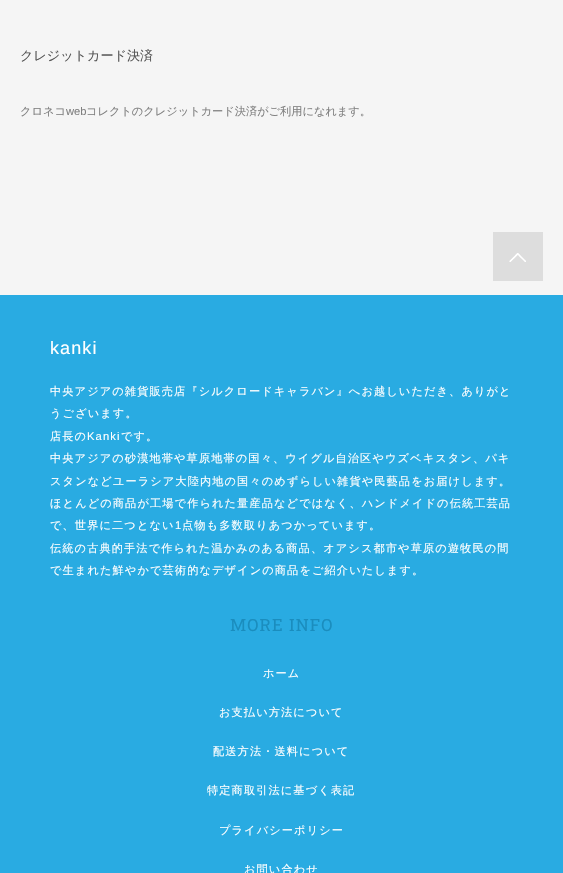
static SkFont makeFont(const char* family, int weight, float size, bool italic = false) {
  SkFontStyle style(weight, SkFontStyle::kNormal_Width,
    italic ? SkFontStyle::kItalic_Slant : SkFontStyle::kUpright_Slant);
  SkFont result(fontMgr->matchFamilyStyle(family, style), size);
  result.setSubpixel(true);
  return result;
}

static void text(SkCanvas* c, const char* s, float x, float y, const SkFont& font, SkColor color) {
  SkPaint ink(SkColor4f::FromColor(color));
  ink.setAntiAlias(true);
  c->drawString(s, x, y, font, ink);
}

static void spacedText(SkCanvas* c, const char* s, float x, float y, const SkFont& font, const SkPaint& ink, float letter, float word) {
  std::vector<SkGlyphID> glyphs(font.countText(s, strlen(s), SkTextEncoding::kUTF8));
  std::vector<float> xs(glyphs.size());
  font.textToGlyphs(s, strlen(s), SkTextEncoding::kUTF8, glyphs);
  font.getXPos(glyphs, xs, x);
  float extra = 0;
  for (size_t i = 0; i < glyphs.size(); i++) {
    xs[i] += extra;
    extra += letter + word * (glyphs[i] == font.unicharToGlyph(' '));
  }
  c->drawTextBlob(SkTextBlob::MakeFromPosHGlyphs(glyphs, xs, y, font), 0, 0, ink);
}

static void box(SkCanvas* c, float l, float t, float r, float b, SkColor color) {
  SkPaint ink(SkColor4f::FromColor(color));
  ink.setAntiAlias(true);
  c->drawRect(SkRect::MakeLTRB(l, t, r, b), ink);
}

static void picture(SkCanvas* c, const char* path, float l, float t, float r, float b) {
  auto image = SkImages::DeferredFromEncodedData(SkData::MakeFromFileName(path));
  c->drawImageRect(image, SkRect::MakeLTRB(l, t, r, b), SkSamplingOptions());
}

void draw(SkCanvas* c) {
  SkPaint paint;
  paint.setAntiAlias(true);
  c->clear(0xfff5f5f5);
  SkFont face1 = makeFont("WenQuanYi Zen Hei", 500, 13.1f);
  text(c, "クレジットカード決済", 20, 60, face1, 0xff555555);
  SkFont face2 = makeFont("WenQuanYi Zen Hei", 500, 11.2f);
  text(c, "クロネコ", 20, 115, face2, 0xff808080);
  SkFont face3 = makeFont("Liberation Sans", 400, 11.2f);
  text(c, "web", 66, 115, face3, 0xff808080);
  text(c, "コレクトのクレジットカード決済がご利用になれます。", 86, 115, face2, 0xff808080);
  box(c, 493, 232, 543, 281, 0xffdddddd);
  picture(c, "img_01.png", 509, 253, 526, 262);
  box(c, 0, 295, 563, 873, 0xff29abe2);
  SkFont face4 = makeFont("Liberation Sans", 400, 18);
  paint.setColor(0xffffffff);
  spacedText(c, "kanki", 50, 354, face4, paint, 1.1f, 0);
  spacedText(c, "中央アジアの雑貨販売店『シルクロードキャラバン』へお越しいただき、ありがと", 50, 395, face2, paint, 1.1f, 0);
  spacedText(c, "うございます。", 50, 417, face2, paint, 1.1f, 0);
  spacedText(c, "店長の", 50, 440, face2, paint, 1.1f, 0);
  spacedText(c, "Kanki", 87, 440, face3, paint, 1.1f, 0);
  spacedText(c, "です。", 121, 440, face2, paint, 1.1f, 0);
  spacedText(c, "中央アジアの砂漠地帯や草原地帯の国々、ウイグル自治区やウズベキスタン、パキ", 50, 462, face2, paint, 1.1f, 0);
  spacedText(c, "スタンなどユーラシア大陸内地の国々のめずらしい雑貨や民藝品をお届けします。", 50, 485, face2, paint, 1.1f, 0);
  spacedText(c, "ほとんどの商品が工場で作られた量産品などではなく、ハンドメイドの伝統工芸品", 50, 507, face2, paint, 1.1f, 0);
  spacedText(c, "で、世界に二つとない", 50, 529, face2, paint, 1.1f, 0);
  spacedText(c, "1", 175, 529, face3, paint, 1.1f, 0);
  spacedText(c, "点物も多数取りあつかっています。", 182, 529, face2, paint, 1.1f, 0);
  spacedText(c, "伝統の古典的手法で作られた温かみのある商品、オアシス都市や草原の遊牧民の間", 50, 552, face2, paint, 1.1f, 0);
  spacedText(c, "で生まれた鮮やかで芸術的なデザインの商品をご紹介いたします。", 50, 574, face2, paint, 1.1f, 0);
  SkFont face5 = makeFont("Roboto Slab", 400, 16.75f);
  paint.setColor(0xff1a8dbe);
  spacedText(c, "MORE INFO", 230, 631, face5, paint, 1.1f, 0);
  paint.setColor(0xffffffff);
  spacedText(c, "ホーム", 263, 677, face2, paint, 1.1f, 0);
  spacedText(c, "お支払い方法について", 219, 716, face2, paint, 1.1f, 0);
  spacedText(c, "配送方法・送料について", 213, 755, face2, paint, 1.1f, 0);
  spacedText(c, "特定商取引法に基づく表記", 207, 794, face2, paint, 1.1f, 0);
  spacedText(c, "プライバシーポリシー", 219, 834, face2, paint, 1.1f, 0);
  spacedText(c, "お問い合わせ", 244, 873, face2, paint, 1.1f, 0);
}
